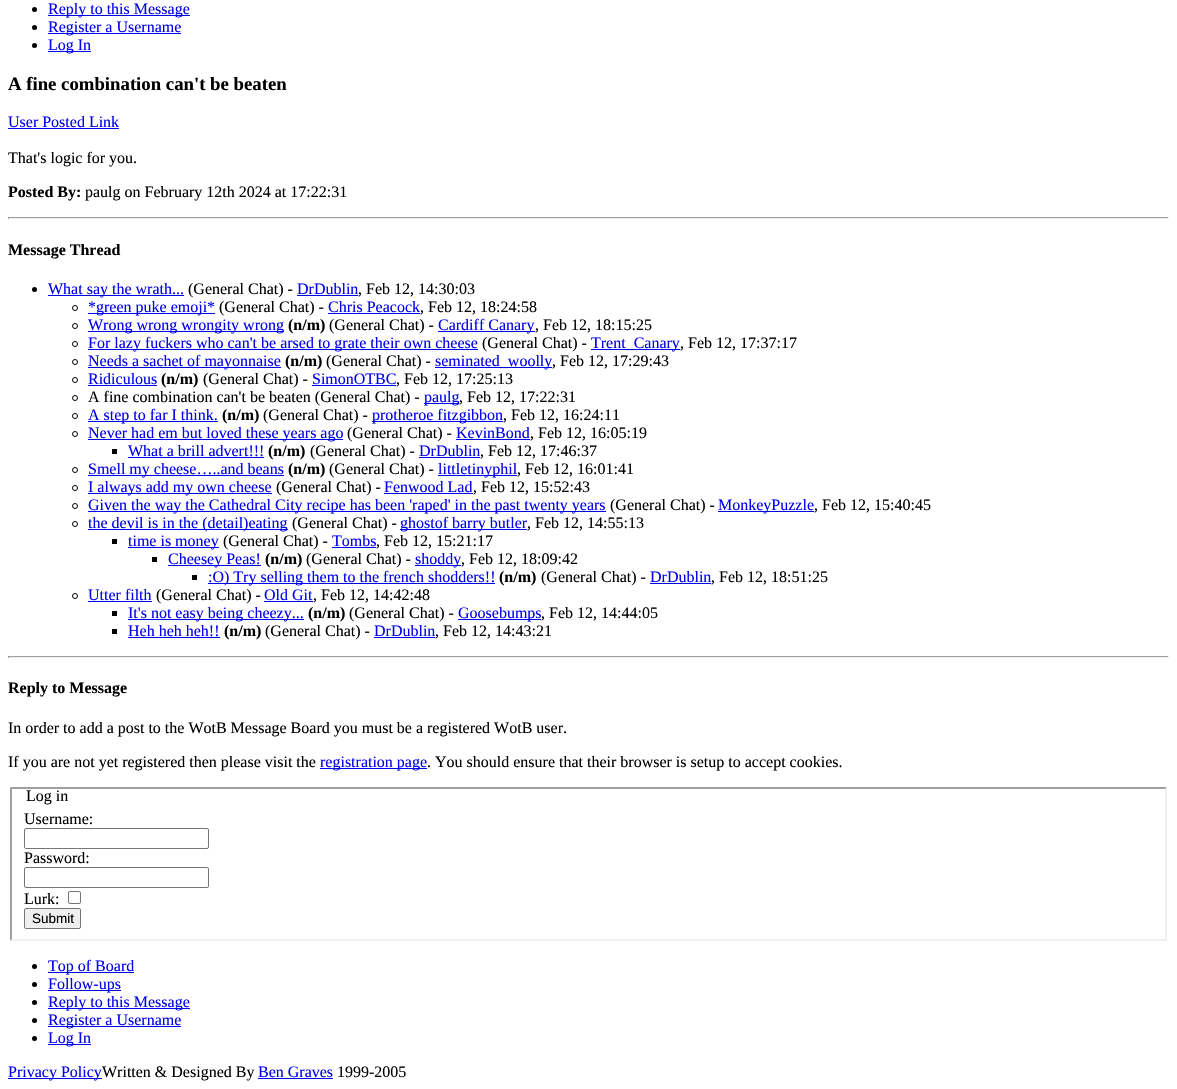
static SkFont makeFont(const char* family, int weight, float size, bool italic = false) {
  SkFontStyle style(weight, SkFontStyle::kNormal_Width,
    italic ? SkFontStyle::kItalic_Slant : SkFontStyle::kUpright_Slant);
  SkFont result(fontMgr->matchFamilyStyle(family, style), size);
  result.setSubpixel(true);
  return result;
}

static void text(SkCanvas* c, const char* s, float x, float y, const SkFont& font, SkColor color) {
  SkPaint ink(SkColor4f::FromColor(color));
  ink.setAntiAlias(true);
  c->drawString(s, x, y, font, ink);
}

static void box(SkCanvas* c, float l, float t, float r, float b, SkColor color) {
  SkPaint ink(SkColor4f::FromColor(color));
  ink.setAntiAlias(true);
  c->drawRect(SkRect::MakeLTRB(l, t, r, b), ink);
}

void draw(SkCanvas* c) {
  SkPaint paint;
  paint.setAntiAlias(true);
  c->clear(0xffffffff);
  paint.setColor(0xff000000);
  c->drawCircle(34.5f, 9.5f, 2.5f, paint);
  box(c, 48, 15, 190, 16, 0xff0000ee);
  SkFont face1 = makeFont("Liberation Serif", 400, 16);
  text(c, "Reply to this Message", 48, 14, face1, 0xff0000ee);
  c->drawCircle(34.5f, 27.5f, 2.5f, paint);
  box(c, 48, 33, 181, 34, 0xff0000ee);
  text(c, "Register a Username", 48, 32, face1, 0xff0000ee);
  c->drawCircle(34.5f, 45.5f, 2.5f, paint);
  box(c, 48, 51, 91, 52, 0xff0000ee);
  text(c, "Log In", 48, 50, face1, 0xff0000ee);
  SkFont face2 = makeFont("Liberation Serif", 700, 18.75f);
  text(c, "A fine combination can't be beaten", 8, 90, face2, 0xff000000);
  text(c, "User Posted Link", 8, 127, face1, 0xff0000ee);
  box(c, 8, 128, 119, 129, 0xff0000ee);
  text(c, "That's logic for you.", 8, 163, face1, 0xff000000);
  SkFont face3 = makeFont("Liberation Serif", 700, 16);
  text(c, "Posted By:", 8, 197, face3, 0xff000000);
  text(c, "paulg on February 12th 2024 at 17:22:31", 85, 197, face1, 0xff000000);
  box(c, 8, 217, 1169, 218, 0xff9f9f9f);
  box(c, 1168, 217, 1169, 219, 0xffeeeeee);
  box(c, 8, 218, 1169, 219, 0xffeeeeee);
  box(c, 8, 217, 9, 219, 0xff9f9f9f);
  text(c, "Message Thread", 8, 255, face3, 0xff000000);
  c->drawCircle(34.5f, 289.5f, 2.5f, paint);
  box(c, 48, 295, 184, 296, 0xff0000ee);
  text(c, "What say the wrath...", 48, 294, face1, 0xff0000ee);
  text(c, "(General Chat) -", 188, 294, face1, 0xff000000);
  text(c, "DrDublin", 297, 294, face1, 0xff0000ee);
  box(c, 297, 295, 358, 296, 0xff0000ee);
  text(c, ", Feb 12, 14:30:03", 358, 294, face1, 0xff000000);
  paint.setStyle(SkPaint::kStroke_Style);
  paint.setStrokeWidth(1);
  c->drawCircle(75, 308, 2.5f, paint);
  box(c, 88, 313, 215, 314, 0xff0000ee);
  text(c, "*green puke emoji*", 88, 312, face1, 0xff0000ee);
  text(c, "(General Chat) -", 219, 312, face1, 0xff000000);
  text(c, "Chris Peacock", 328, 312, face1, 0xff0000ee);
  box(c, 328, 313, 420, 314, 0xff0000ee);
  text(c, ", Feb 12, 18:24:58", 420, 312, face1, 0xff000000);
  c->drawCircle(75, 326, 2.5f, paint);
  box(c, 88, 331, 284, 332, 0xff0000ee);
  text(c, "Wrong wrong wrongity wrong", 88, 330, face1, 0xff0000ee);
  text(c, "(n/m)", 288, 330, face3, 0xff000000);
  text(c, "(General Chat) -", 329, 330, face1, 0xff000000);
  box(c, 438, 331, 535, 332, 0xff0000ee);
  text(c, "Cardiff Canary", 438, 330, face1, 0xff0000ee);
  text(c, ", Feb 12, 18:15:25", 535, 330, face1, 0xff000000);
  c->drawCircle(75, 344, 2.5f, paint);
  box(c, 88, 349, 478, 350, 0xff0000ee);
  text(c, "For lazy fuckers who can't be arsed to grate their own cheese", 88, 348, face1, 0xff0000ee);
  text(c, "(General Chat) -", 482, 348, face1, 0xff000000);
  box(c, 591, 349, 680, 350, 0xff0000ee);
  text(c, "Trent_Canary", 591, 348, face1, 0xff0000ee);
  text(c, ", Feb 12, 17:37:17", 680, 348, face1, 0xff000000);
  c->drawCircle(75, 362, 2.5f, paint);
  box(c, 88, 367, 281, 368, 0xff0000ee);
  text(c, "Needs a sachet of mayonnaise", 88, 366, face1, 0xff0000ee);
  text(c, "(n/m)", 285, 366, face3, 0xff000000);
  text(c, "(General Chat) -", 326, 366, face1, 0xff000000);
  box(c, 435, 367, 552, 368, 0xff0000ee);
  text(c, "seminated_woolly", 435, 366, face1, 0xff0000ee);
  text(c, ", Feb 12, 17:29:43", 552, 366, face1, 0xff000000);
  c->drawCircle(75, 380, 2.5f, paint);
  text(c, "Ridiculous", 88, 384, face1, 0xff0000ee);
  box(c, 88, 385, 157, 386, 0xff0000ee);
  text(c, "(n/m)", 161, 384, face3, 0xff000000);
  text(c, "(General Chat) -", 203, 384, face1, 0xff000000);
  text(c, "SimonOTBC", 312, 384, face1, 0xff0000ee);
  box(c, 312, 385, 396, 386, 0xff0000ee);
  text(c, ", Feb 12, 17:25:13", 396, 384, face1, 0xff000000);
  c->drawCircle(75, 398, 2.5f, paint);
  text(c, "A fine combination can't be beaten (General Chat) -", 88, 402, face1, 0xff000000);
  box(c, 424, 403, 459, 404, 0xff0000ee);
  text(c, "paulg", 424, 402, face1, 0xff0000ee);
  text(c, ", Feb 12, 17:22:31", 459, 402, face1, 0xff000000);
  c->drawCircle(75, 416, 2.5f, paint);
  box(c, 88, 421, 218, 422, 0xff0000ee);
  text(c, "A step to far I think.", 88, 420, face1, 0xff0000ee);
  text(c, "(n/m)", 222, 420, face3, 0xff000000);
  text(c, "(General Chat) -", 263, 420, face1, 0xff000000);
  box(c, 372, 421, 503, 422, 0xff0000ee);
  text(c, "protheroe fitzgibbon", 372, 420, face1, 0xff0000ee);
  text(c, ", Feb 12, 16:24:11", 503, 420, face1, 0xff000000);
  c->drawCircle(75, 434, 2.5f, paint);
  box(c, 88, 439, 343, 440, 0xff0000ee);
  text(c, "Never had em but loved these years ago", 88, 438, face1, 0xff0000ee);
  text(c, "(General Chat) -", 347, 438, face1, 0xff000000);
  text(c, "KevinBond", 456, 438, face1, 0xff0000ee);
  box(c, 456, 439, 530, 440, 0xff0000ee);
  text(c, ", Feb 12, 16:05:19", 530, 438, face1, 0xff000000);
  box(c, 112, 449, 117, 454, 0xff000000);
  text(c, "What a brill advert!!!", 128, 456, face1, 0xff0000ee);
  box(c, 128, 457, 264, 458, 0xff0000ee);
  text(c, "(n/m)", 268, 456, face3, 0xff000000);
  text(c, "(General Chat) -", 310, 456, face1, 0xff000000);
  text(c, "DrDublin", 419, 456, face1, 0xff0000ee);
  box(c, 419, 457, 480, 458, 0xff0000ee);
  text(c, ", Feb 12, 17:46:37", 480, 456, face1, 0xff000000);
  c->drawCircle(75, 470, 2.5f, paint);
  box(c, 88, 475, 284, 476, 0xff0000ee);
  text(c, "Smell my cheese…..and beans", 88, 474, face1, 0xff0000ee);
  text(c, "(n/m)", 288, 474, face3, 0xff000000);
  text(c, "(General Chat) -", 329, 474, face1, 0xff000000);
  box(c, 438, 475, 517, 476, 0xff0000ee);
  text(c, "littletinyphil", 438, 474, face1, 0xff0000ee);
  text(c, ", Feb 12, 16:01:41", 517, 474, face1, 0xff000000);
  c->drawCircle(75, 488, 2.5f, paint);
  box(c, 88, 493, 272, 494, 0xff0000ee);
  text(c, "I always add my own cheese", 88, 492, face1, 0xff0000ee);
  text(c, "(General Chat) -", 276, 492, face1, 0xff000000);
  text(c, "Fenwood Lad", 384, 492, face1, 0xff0000ee);
  box(c, 384, 493, 473, 494, 0xff0000ee);
  text(c, ", Feb 12, 15:52:43", 473, 492, face1, 0xff000000);
  c->drawCircle(75, 506, 2.5f, paint);
  box(c, 88, 511, 606, 512, 0xff0000ee);
  text(c, "Given the way the Cathedral City recipe has been 'raped' in the past twenty years", 88, 510, face1, 0xff0000ee);
  text(c, "(General Chat) -", 610, 510, face1, 0xff000000);
  box(c, 718, 511, 814, 512, 0xff0000ee);
  text(c, "MonkeyPuzzle", 718, 510, face1, 0xff0000ee);
  text(c, ", Feb 12, 15:40:45", 814, 510, face1, 0xff000000);
  c->drawCircle(75, 524, 2.5f, paint);
  box(c, 88, 529, 288, 530, 0xff0000ee);
  text(c, "the devil is in the (detail)eating", 88, 528, face1, 0xff0000ee);
  text(c, "(General Chat) -", 292, 528, face1, 0xff000000);
  box(c, 400, 529, 527, 530, 0xff0000ee);
  text(c, "ghostof barry butler", 400, 528, face1, 0xff0000ee);
  text(c, ", Feb 12, 14:55:13", 527, 528, face1, 0xff000000);
  box(c, 112, 539, 117, 544, 0xff000000);
  box(c, 128, 547, 219, 548, 0xff0000ee);
  text(c, "time is money", 128, 546, face1, 0xff0000ee);
  text(c, "(General Chat) -", 223, 546, face1, 0xff000000);
  text(c, "Tombs", 332, 546, face1, 0xff0000ee);
  box(c, 332, 547, 376, 548, 0xff0000ee);
  text(c, ", Feb 12, 15:21:17", 376, 546, face1, 0xff000000);
  box(c, 152, 557, 157, 562, 0xff000000);
  box(c, 168, 565, 261, 566, 0xff0000ee);
  text(c, "Cheesey Peas!", 168, 564, face1, 0xff0000ee);
  text(c, "(n/m)", 265, 564, face3, 0xff000000);
  text(c, "(General Chat) -", 306, 564, face1, 0xff000000);
  box(c, 415, 565, 461, 566, 0xff0000ee);
  text(c, "shoddy", 415, 564, face1, 0xff0000ee);
  text(c, ", Feb 12, 18:09:42", 461, 564, face1, 0xff000000);
  box(c, 192, 575, 197, 580, 0xff000000);
  box(c, 208, 583, 495, 584, 0xff0000ee);
  text(c, ":O) Try selling them to the french shodders!!", 208, 582, face1, 0xff0000ee);
  text(c, "(n/m)", 499, 582, face3, 0xff000000);
  text(c, "(General Chat) -", 541, 582, face1, 0xff000000);
  text(c, "DrDublin", 650, 582, face1, 0xff0000ee);
  box(c, 650, 583, 711, 584, 0xff0000ee);
  text(c, ", Feb 12, 18:51:25", 711, 582, face1, 0xff000000);
  c->drawCircle(75, 596, 2.5f, paint);
  text(c, "Utter filth", 88, 600, face1, 0xff0000ee);
  box(c, 88, 601, 152, 602, 0xff0000ee);
  text(c, "(General Chat) -", 156, 600, face1, 0xff000000);
  text(c, "Old Git", 264, 600, face1, 0xff0000ee);
  box(c, 264, 601, 313, 602, 0xff0000ee);
  text(c, ", Feb 12, 14:42:48", 313, 600, face1, 0xff000000);
  box(c, 112, 611, 117, 616, 0xff000000);
  box(c, 128, 619, 304, 620, 0xff0000ee);
  text(c, "It's not easy being cheezy...", 128, 618, face1, 0xff0000ee);
  text(c, "(n/m)", 308, 618, face3, 0xff000000);
  text(c, "(General Chat) -", 349, 618, face1, 0xff000000);
  box(c, 458, 619, 541, 620, 0xff0000ee);
  text(c, "Goosebumps", 458, 618, face1, 0xff0000ee);
  text(c, ", Feb 12, 14:44:05", 541, 618, face1, 0xff000000);
  box(c, 112, 629, 117, 634, 0xff000000);
  text(c, "Heh heh heh!!", 128, 636, face1, 0xff0000ee);
  box(c, 128, 637, 220, 638, 0xff0000ee);
  text(c, "(n/m)", 224, 636, face3, 0xff000000);
  text(c, "(General Chat) -", 265, 636, face1, 0xff000000);
  text(c, "DrDublin", 374, 636, face1, 0xff0000ee);
  box(c, 374, 637, 435, 638, 0xff0000ee);
  text(c, ", Feb 12, 14:43:21", 435, 636, face1, 0xff000000);
  box(c, 8, 656, 1169, 657, 0xff9f9f9f);
  box(c, 1168, 656, 1169, 658, 0xffeeeeee);
  box(c, 8, 657, 1169, 658, 0xffeeeeee);
  box(c, 8, 656, 9, 658, 0xff9f9f9f);
  text(c, "Reply to Message", 8, 693, face3, 0xff000000);
  text(c, "In order to add a post to the WotB Message Board you must be a registered WotB user.", 8, 733, face1, 0xff000000);
  text(c, "If you are not yet registered then please visit the", 8, 767, face1, 0xff000000);
  box(c, 320, 768, 427, 769, 0xff0000ee);
  text(c, "registration page", 320, 767, face1, 0xff0000ee);
  text(c, ". You should ensure that their browser is setup to accept cookies.", 427, 767, face1, 0xff000000);
  paint.setStyle(SkPaint::kFill_Style);
  paint.setColor(0xff9f9f9f);
  c->drawPath(SkPathBuilder().moveTo(10, 787).lineTo(1167, 787).lineTo(1165, 789).lineTo(12, 789).close().detach(), paint);
  paint.setColor(0xffefefef);
  c->drawPath(SkPathBuilder().moveTo(1167, 787).lineTo(1167, 941).lineTo(1165, 939).lineTo(1165, 789).close().detach(), paint);
  c->drawPath(SkPathBuilder().moveTo(1167, 941).lineTo(10, 941).lineTo(12, 939).lineTo(1165, 939).close().detach(), paint);
  paint.setColor(0xff9f9f9f);
  c->drawPath(SkPathBuilder().moveTo(10, 941).lineTo(10, 787).lineTo(12, 789).lineTo(12, 939).close().detach(), paint);
  text(c, "Log in", 26, 801, face1, 0xff000000);
  text(c, "Username:", 24, 824, face1, 0xff000000);
  paint.setStyle(SkPaint::kStroke_Style);
  paint.setColor(0xff767676);
  c->drawRoundRect(SkRect::MakeLTRB(24.5f, 828.5f, 208.5f, 848.5f), 1.5f, 1.5f, paint);
  text(c, "Password:", 24, 863, face1, 0xff000000);
  c->drawRoundRect(SkRect::MakeLTRB(24.5f, 867.5f, 208.5f, 887.5f), 1.5f, 1.5f, paint);
  text(c, "Lurk:", 24, 904, face1, 0xff000000);
  c->drawRoundRect(SkRect::MakeLTRB(68.5f, 891.5f, 80.5f, 903.5f), 1.5f, 1.5f, paint);
  paint.setStyle(SkPaint::kFill_Style);
  paint.setColor(0xffefefef);
  c->drawRoundRect(SkRect::MakeLTRB(24.5f, 908.5f, 80.5f, 928.5f), 1.5f, 1.5f, paint);
  paint.setStyle(SkPaint::kStroke_Style);
  paint.setColor(0xff767676);
  c->drawRoundRect(SkRect::MakeLTRB(24.5f, 908.5f, 80.5f, 928.5f), 1.5f, 1.5f, paint);
  SkFont face4 = makeFont("Liberation Sans", 400, 13.5f);
  text(c, "Submit", 32, 923, face4, 0xff000000);
  paint.setStyle(SkPaint::kFill_Style);
  paint.setColor(0xff000000);
  c->drawCircle(34.5f, 966.5f, 2.5f, paint);
  box(c, 48, 972, 134, 973, 0xff0000ee);
  text(c, "Top of Board", 48, 971, face1, 0xff0000ee);
  c->drawCircle(34.5f, 984.5f, 2.5f, paint);
  box(c, 48, 990, 121, 991, 0xff0000ee);
  text(c, "Follow-ups", 48, 989, face1, 0xff0000ee);
  c->drawCircle(34.5f, 1002.5f, 2.5f, paint);
  box(c, 48, 1008, 190, 1009, 0xff0000ee);
  text(c, "Reply to this Message", 48, 1007, face1, 0xff0000ee);
  c->drawCircle(34.5f, 1020.5f, 2.5f, paint);
  box(c, 48, 1026, 181, 1027, 0xff0000ee);
  text(c, "Register a Username", 48, 1025, face1, 0xff0000ee);
  c->drawCircle(34.5f, 1038.5f, 2.5f, paint);
  box(c, 48, 1044, 91, 1045, 0xff0000ee);
  text(c, "Log In", 48, 1043, face1, 0xff0000ee);
  box(c, 8, 1078, 102, 1079, 0xff0000ee);
  text(c, "Privacy Policy", 8, 1077, face1, 0xff0000ee);
  text(c, "Written & Designed By", 102, 1077, face1, 0xff000000);
  text(c, "Ben Graves", 258, 1077, face1, 0xff0000ee);
  box(c, 258, 1078, 333, 1079, 0xff0000ee);
  text(c, "1999-2005", 337, 1077, face1, 0xff000000);
}
